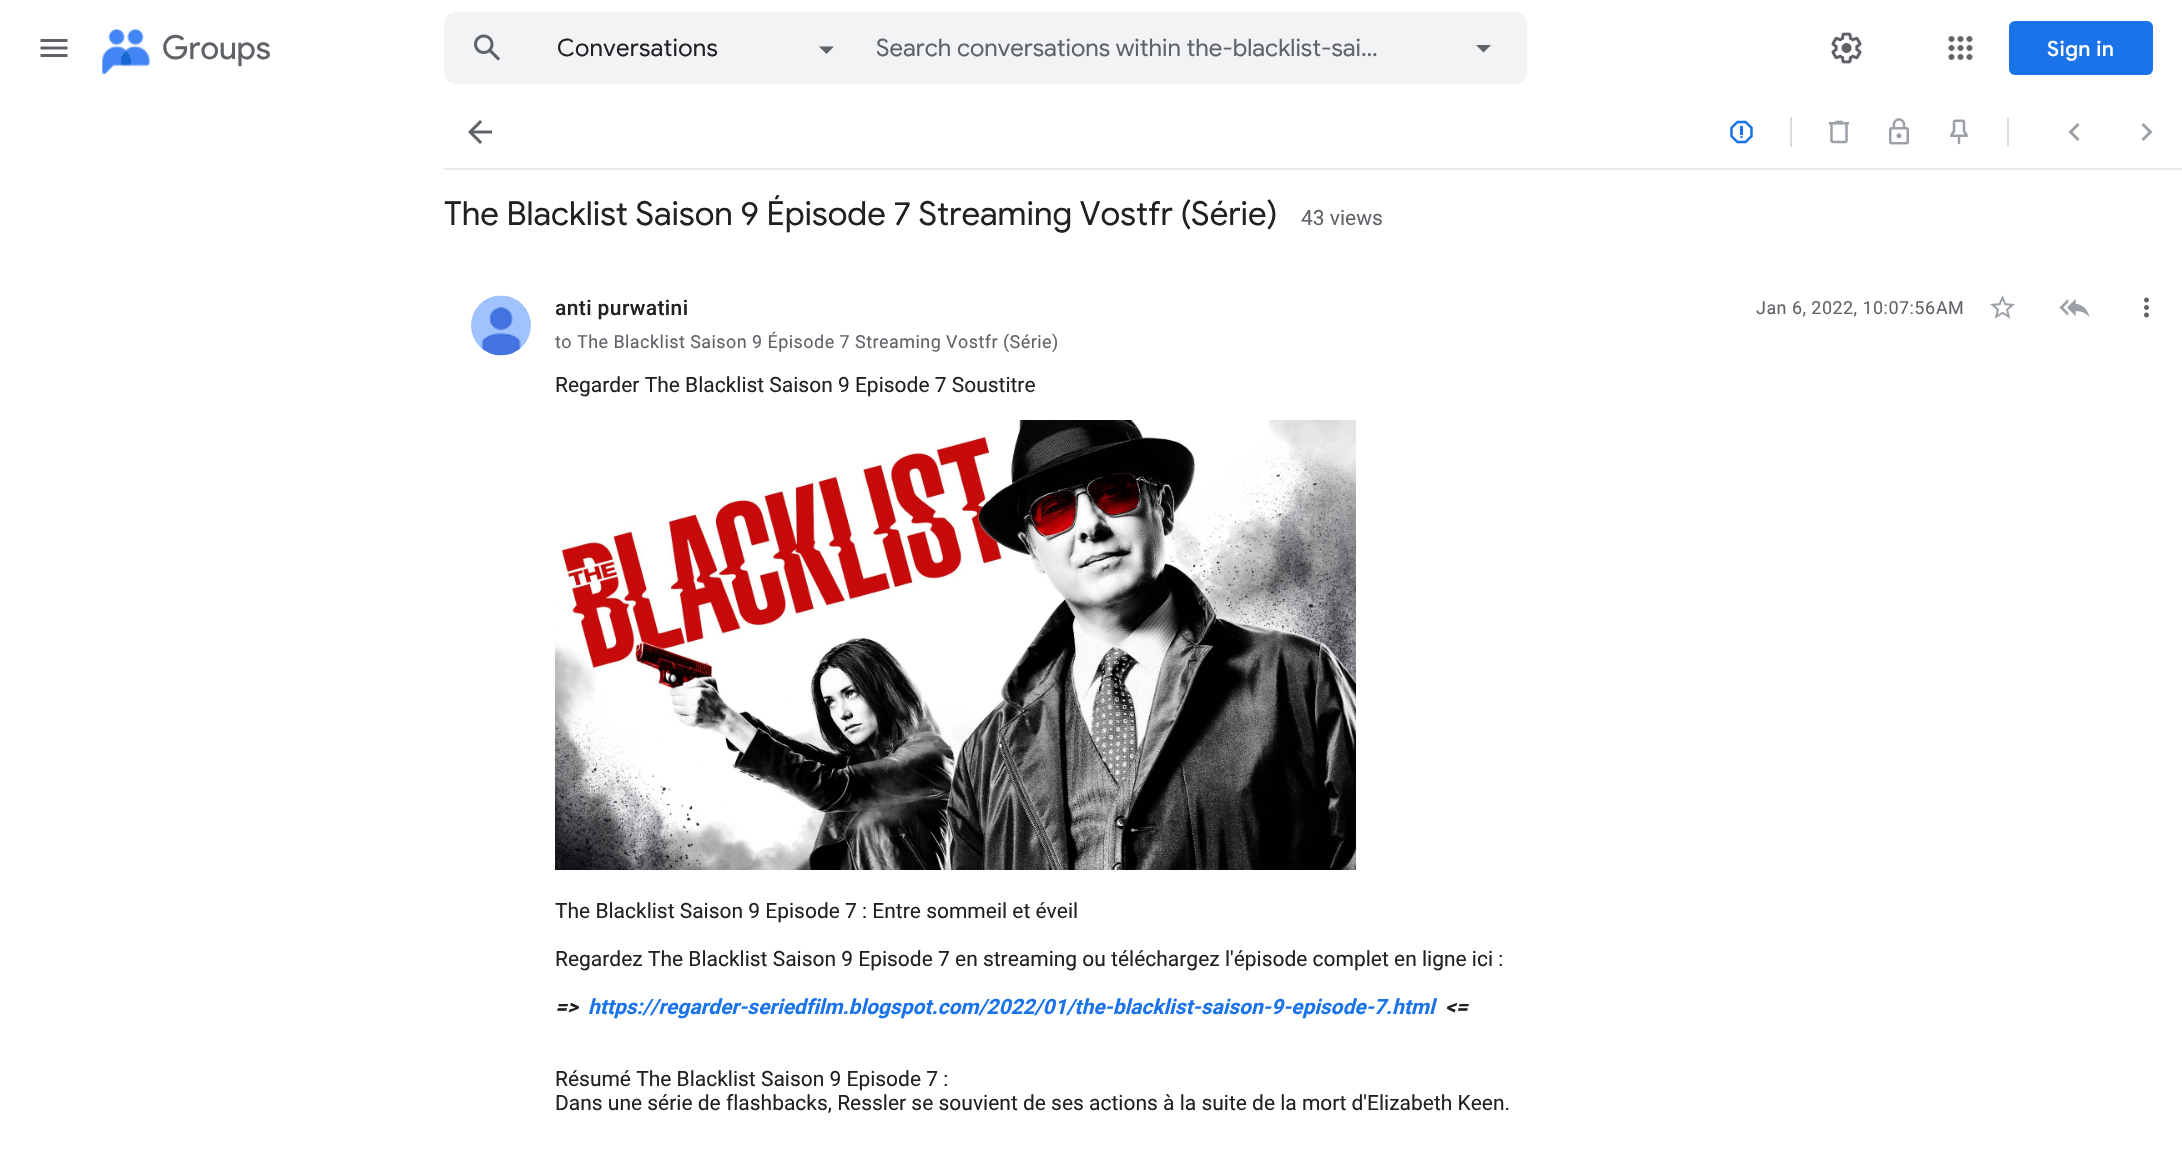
static SkFont makeFont(const char* family, int weight, float size, bool italic = false) {
  SkFontStyle style(weight, SkFontStyle::kNormal_Width,
    italic ? SkFontStyle::kItalic_Slant : SkFontStyle::kUpright_Slant);
  SkFont result(fontMgr->matchFamilyStyle(family, style), size);
  result.setSubpixel(true);
  return result;
}

static void text(SkCanvas* c, const char* s, float x, float y, const SkFont& font, SkColor color) {
  SkPaint ink(SkColor4f::FromColor(color));
  ink.setAntiAlias(true);
  c->drawString(s, x, y, font, ink);
}

static void spacedText(SkCanvas* c, const char* s, float x, float y, const SkFont& font, const SkPaint& ink, float letter, float word) {
  std::vector<SkGlyphID> glyphs(font.countText(s, strlen(s), SkTextEncoding::kUTF8));
  std::vector<float> xs(glyphs.size());
  font.textToGlyphs(s, strlen(s), SkTextEncoding::kUTF8, glyphs);
  font.getXPos(glyphs, xs, x);
  float extra = 0;
  for (size_t i = 0; i < glyphs.size(); i++) {
    xs[i] += extra;
    extra += letter + word * (glyphs[i] == font.unicharToGlyph(' '));
  }
  c->drawTextBlob(SkTextBlob::MakeFromPosHGlyphs(glyphs, xs, y, font), 0, 0, ink);
}

static void box(SkCanvas* c, float l, float t, float r, float b, SkColor color) {
  SkPaint ink(SkColor4f::FromColor(color));
  ink.setAntiAlias(true);
  c->drawRect(SkRect::MakeLTRB(l, t, r, b), ink);
}

static void roundBox(SkCanvas* c, float l, float t, float r, float b, float radius, SkColor color) {
  SkPaint ink(SkColor4f::FromColor(color));
  ink.setAntiAlias(true);
  c->drawRoundRect(SkRect::MakeLTRB(l, t, r, b), radius, radius, ink);
}

static void picture(SkCanvas* c, const char* path, float l, float t, float r, float b) {
  auto image = SkImages::DeferredFromEncodedData(SkData::MakeFromFileName(path));
  c->drawImageRect(image, SkRect::MakeLTRB(l, t, r, b), SkSamplingOptions());
}

void draw(SkCanvas* c) {
  SkPaint paint;
  paint.setAntiAlias(true);
  c->clear(0xffffffff);
  picture(c, "img_01.png", 40, 39, 68, 57);
  picture(c, "img_02.png", 102, 28, 150, 75);
  SkFont face1 = makeFont("Product Sans", 400, 33);
  text(c, "Groups", 162, 59, face1, 0xff5f6368);
  roundBox(c, 444, 12, 1527, 84, 12, 0xfff1f3f4);
  picture(c, "img_03.png", 474, 34, 501, 61);
  SkFont face2 = makeFont("Google Sans", 400, 24);
  paint.setColor(0xff202124);
  spacedText(c, "Conversations", 557, 56, face2, paint, 0.25f, 0);
  paint.setColor(0xff5f6368);
  c->drawPath(SkPathBuilder().moveTo(819, 46.5f).lineTo(834, 46.5f).lineTo(826.5f, 54).close().detach(), paint);
  text(c, "Search conversations within the-blacklist-sai…", 876, 56, face2, 0xff5f6368);
  c->drawPath(SkPathBuilder().moveTo(1476, 45).lineTo(1483.5f, 52.5f).lineTo(1491, 45).close().detach(), paint);
  picture(c, "img_04.png", 1831, 32, 1862, 64);
  picture(c, "img_05.png", 1948, 36, 1973, 60);
  roundBox(c, 2009, 21, 2153, 75, 6, 0xff1a73e8);
  SkFont face3 = makeFont("Google Sans", 500, 21);
  paint.setColor(0xffffffff);
  spacedText(c, "Sign in", 2047, 56, face3, paint, 0.4f, 0);
  box(c, 444, 168, 2182, 170, 0xffe8eaed);
  picture(c, "img_06.png", 468, 120, 492, 144);
  picture(c, "img_07.png", 1730, 120, 1753, 144);
  box(c, 1790, 117, 1792, 147, 0xffdddddd);
  picture(c, "img_08.png", 1829, 120, 1849, 144);
  picture(c, "img_09.png", 1889, 118, 1909, 145);
  picture(c, "img_10.png", 1950, 119, 1968, 145);
  box(c, 2007, 117, 2009, 147, 0xffdddddd);
  paint.setColor(0xff9aa0a6);
  c->drawPath(SkPathBuilder().moveTo(2079.5f, 125).lineTo(2072.5f, 132).lineTo(2079.5f, 139).lineTo(2077.5f, 141).lineTo(2068.5f, 132).lineTo(2077.5f, 123).close().detach(), paint);
  c->drawPath(SkPathBuilder().moveTo(2143.5f, 123).lineTo(2152.5f, 132).lineTo(2143.5f, 141).lineTo(2141.5f, 139).lineTo(2148.5f, 132).lineTo(2141.5f, 125).close().detach(), paint);
  SkFont face4 = makeFont("Google Sans", 400, 33);
  text(c, "The Blacklist Saison 9 Épisode 7 Streaming Vostfr (Série)", 444, 225, face4, 0xff202124);
  SkFont face5 = makeFont("Roboto", 400, 21);
  text(c, "43 views", 1301, 225, face5, 0xff5f6368);
  picture(c, "img_11.png", 471, 295, 531, 356);
  SkFont face6 = makeFont("Roboto", 500, 21);
  paint.setColor(0xff202124);
  spacedText(c, "anti purwatini", 555, 315, face6, paint, 0.4f, 0);
  SkFont face7 = makeFont("Roboto", 400, 18);
  paint.setColor(0xff5f6368);
  spacedText(c, "Jan 6, 2022, 10:07:56 AM", 1756, 314, face7, paint, 0.45f, 0);
  picture(c, "img_12.png", 1990, 295, 2015, 319);
  picture(c, "img_13.png", 2059, 299, 2090, 318);
  picture(c, "img_14.png", 2144, 297, 2149, 318);
  spacedText(c, "to The Blacklist Saison 9 Épisode 7 Streaming Vostfr (Série)", 555, 348, face7, paint, 0.45f, 0);
  text(c, "Regarder The Blacklist Saison 9 Episode 7 Soustitre", 555, 392, face5, 0xff202124);
  picture(c, "img_15.png", 555, 420, 1356, 870);
  text(c, "The Blacklist Saison 9 Episode 7 : Entre sommeil et éveil", 555, 918, face5, 0xff202124);
  text(c, "Regardez The Blacklist Saison 9 Episode 7 en streaming ou téléchargez l'épisode complet en ligne ici :", 555, 966, face5, 0xff202124);
  SkFont face8 = makeFont("Roboto", 700, 21, true);
  text(c, "=>", 555, 1014, face8, 0xff202124);
  text(c, "https://regarder-seriedfilm.blogspot.com/2022/01/the-blacklist-saison-9-episode-7.html", 588, 1014, face8, 0xff1a73e8);
  text(c, "<=", 1445, 1014, face8, 0xff202124);
  text(c, "Résumé The Blacklist Saison 9 Episode 7 :", 555, 1086, face5, 0xff202124);
  text(c, "Dans une série de flashbacks, Ressler se souvient de ses actions à la suite de la mort d'Elizabeth Keen.", 555, 1110, face5, 0xff202124);
}
